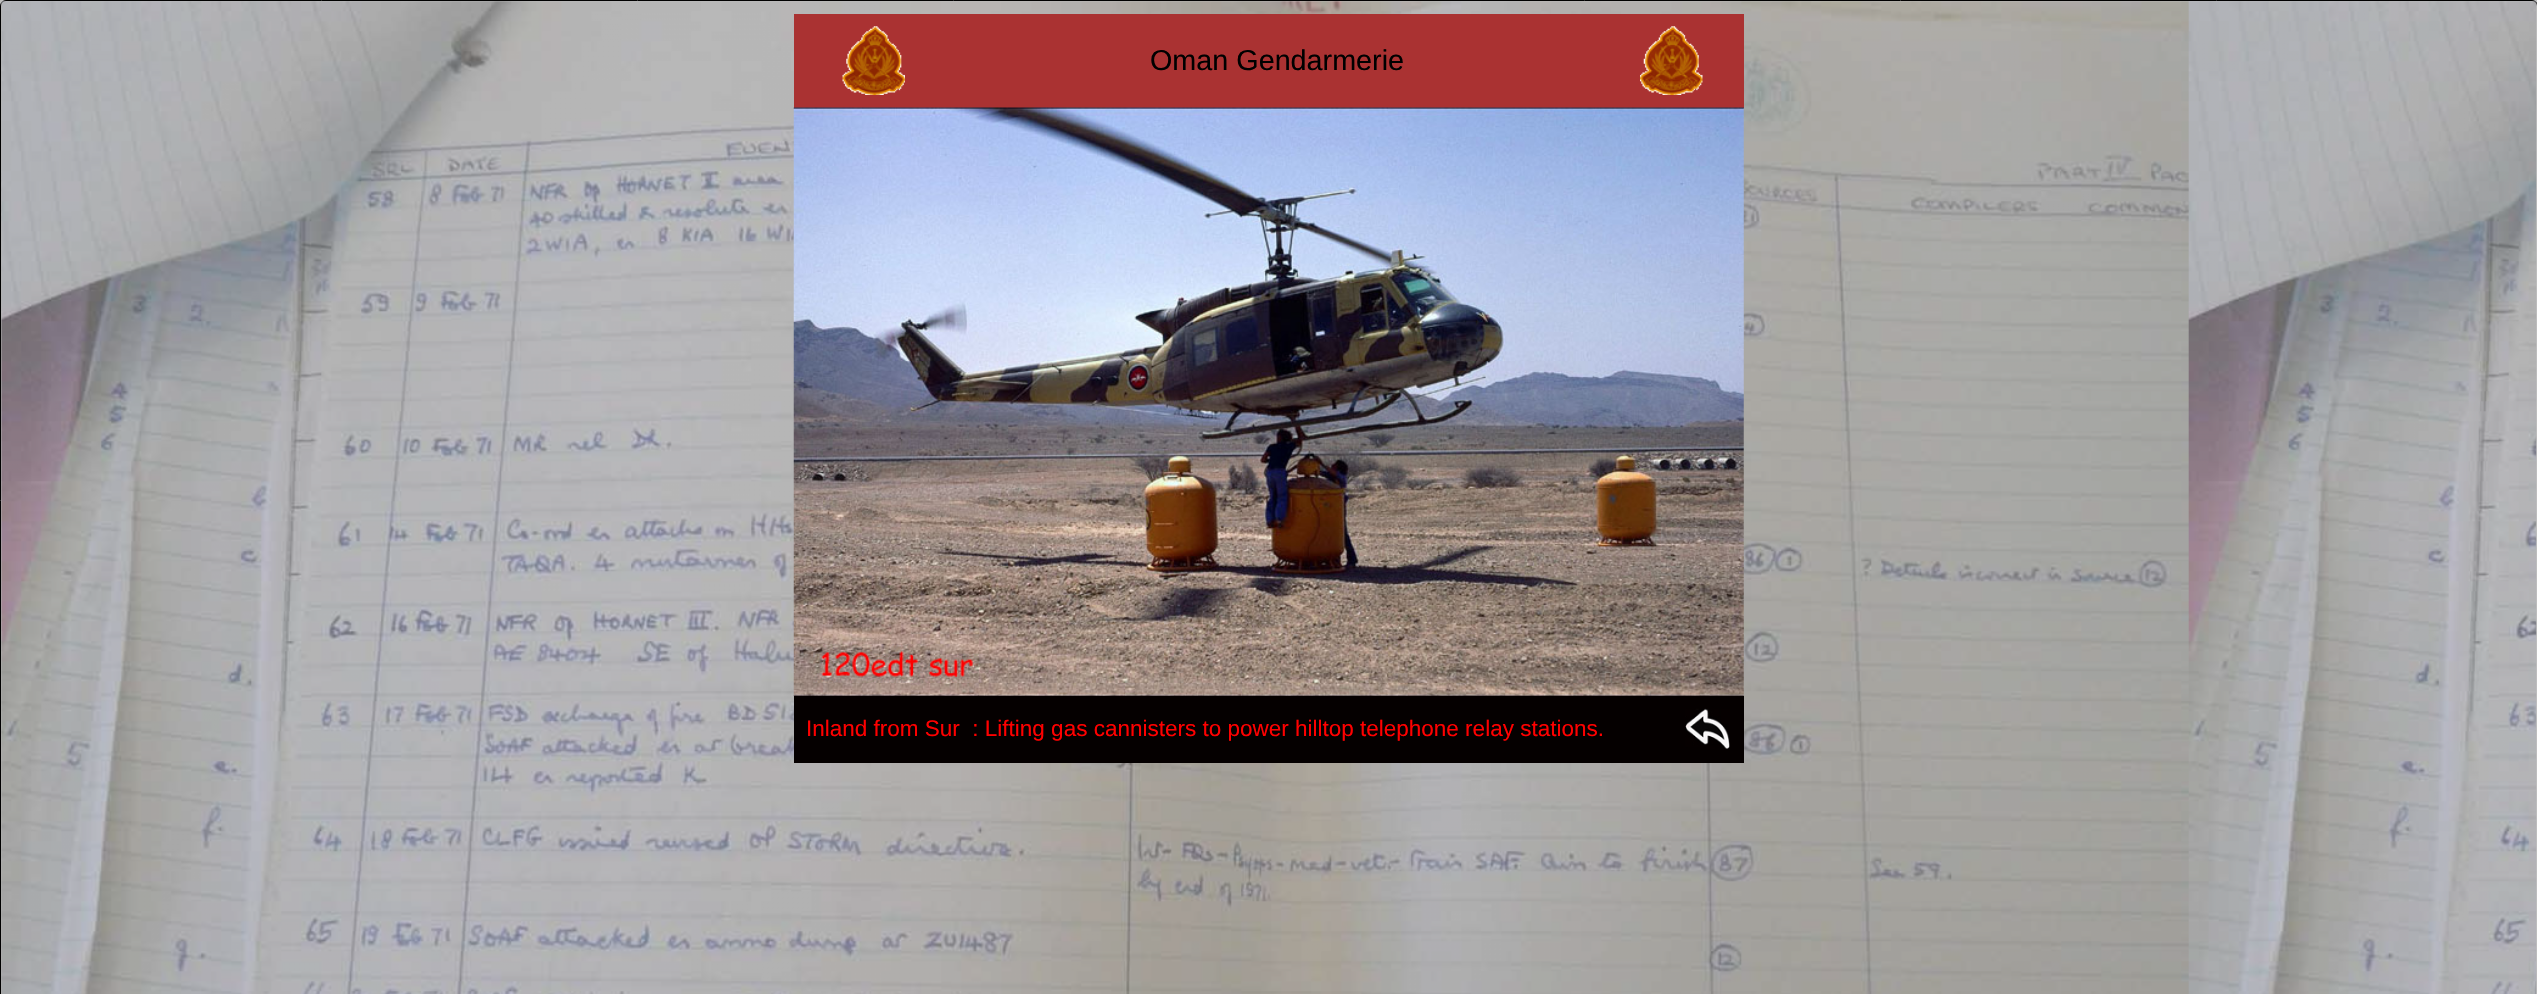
static SkFont makeFont(const char* family, int weight, float size, bool italic = false) {
  SkFontStyle style(weight, SkFontStyle::kNormal_Width,
    italic ? SkFontStyle::kItalic_Slant : SkFontStyle::kUpright_Slant);
  SkFont result(fontMgr->matchFamilyStyle(family, style), size);
  result.setSubpixel(true);
  return result;
}

static void text(SkCanvas* c, const char* s, float x, float y, const SkFont& font, SkColor color) {
  SkPaint ink(SkColor4f::FromColor(color));
  ink.setAntiAlias(true);
  c->drawString(s, x, y, font, ink);
}

static void box(SkCanvas* c, float l, float t, float r, float b, SkColor color) {
  SkPaint ink(SkColor4f::FromColor(color));
  ink.setAntiAlias(true);
  c->drawRect(SkRect::MakeLTRB(l, t, r, b), ink);
}

static void picture(SkCanvas* c, const char* path, float l, float t, float r, float b) {
  auto image = SkImages::DeferredFromEncodedData(SkData::MakeFromFileName(path));
  c->drawImageRect(image, SkRect::MakeLTRB(l, t, r, b), SkSamplingOptions());
}

void draw(SkCanvas* c) {
  SkPaint paint;
  paint.setAntiAlias(true);
  c->clear(0xffc0c0c0);
  paint.setStyle(SkPaint::kStroke_Style);
  paint.setStrokeWidth(1);
  paint.setColor(0xff000000);
  c->drawRoundRect(SkRect::MakeLTRB(0.5f, 0.5f, 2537.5f, 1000.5f), 5.5f, 5.5f, paint);
  picture(c, "img_01.png", 1, 1, 2537, 994);
  box(c, 794, 14, 1744, 108, 0xffaa3232);
  picture(c, "img_02.png", 842, 26, 905, 95);
  SkFont face1 = makeFont("Liberation Sans", 400, 28.75f);
  text(c, "Oman Gendarmerie", 1150, 70, face1, 0xff000000);
  picture(c, "img_03.png", 1640, 26, 1703, 95);
  picture(c, "img_04.png", 793, 107, 1744, 697);
  box(c, 794, 696, 1744, 763, 0xff050000);
  SkFont face2 = makeFont("Liberation Sans", 400, 22.5f);
  text(c, "Inland from Sur  : Lifting gas cannisters to power hilltop telephone relay stations.", 806, 736, face2, 0xffff0000);
  picture(c, "img_05.png", 1685, 708, 1730, 749);
}
